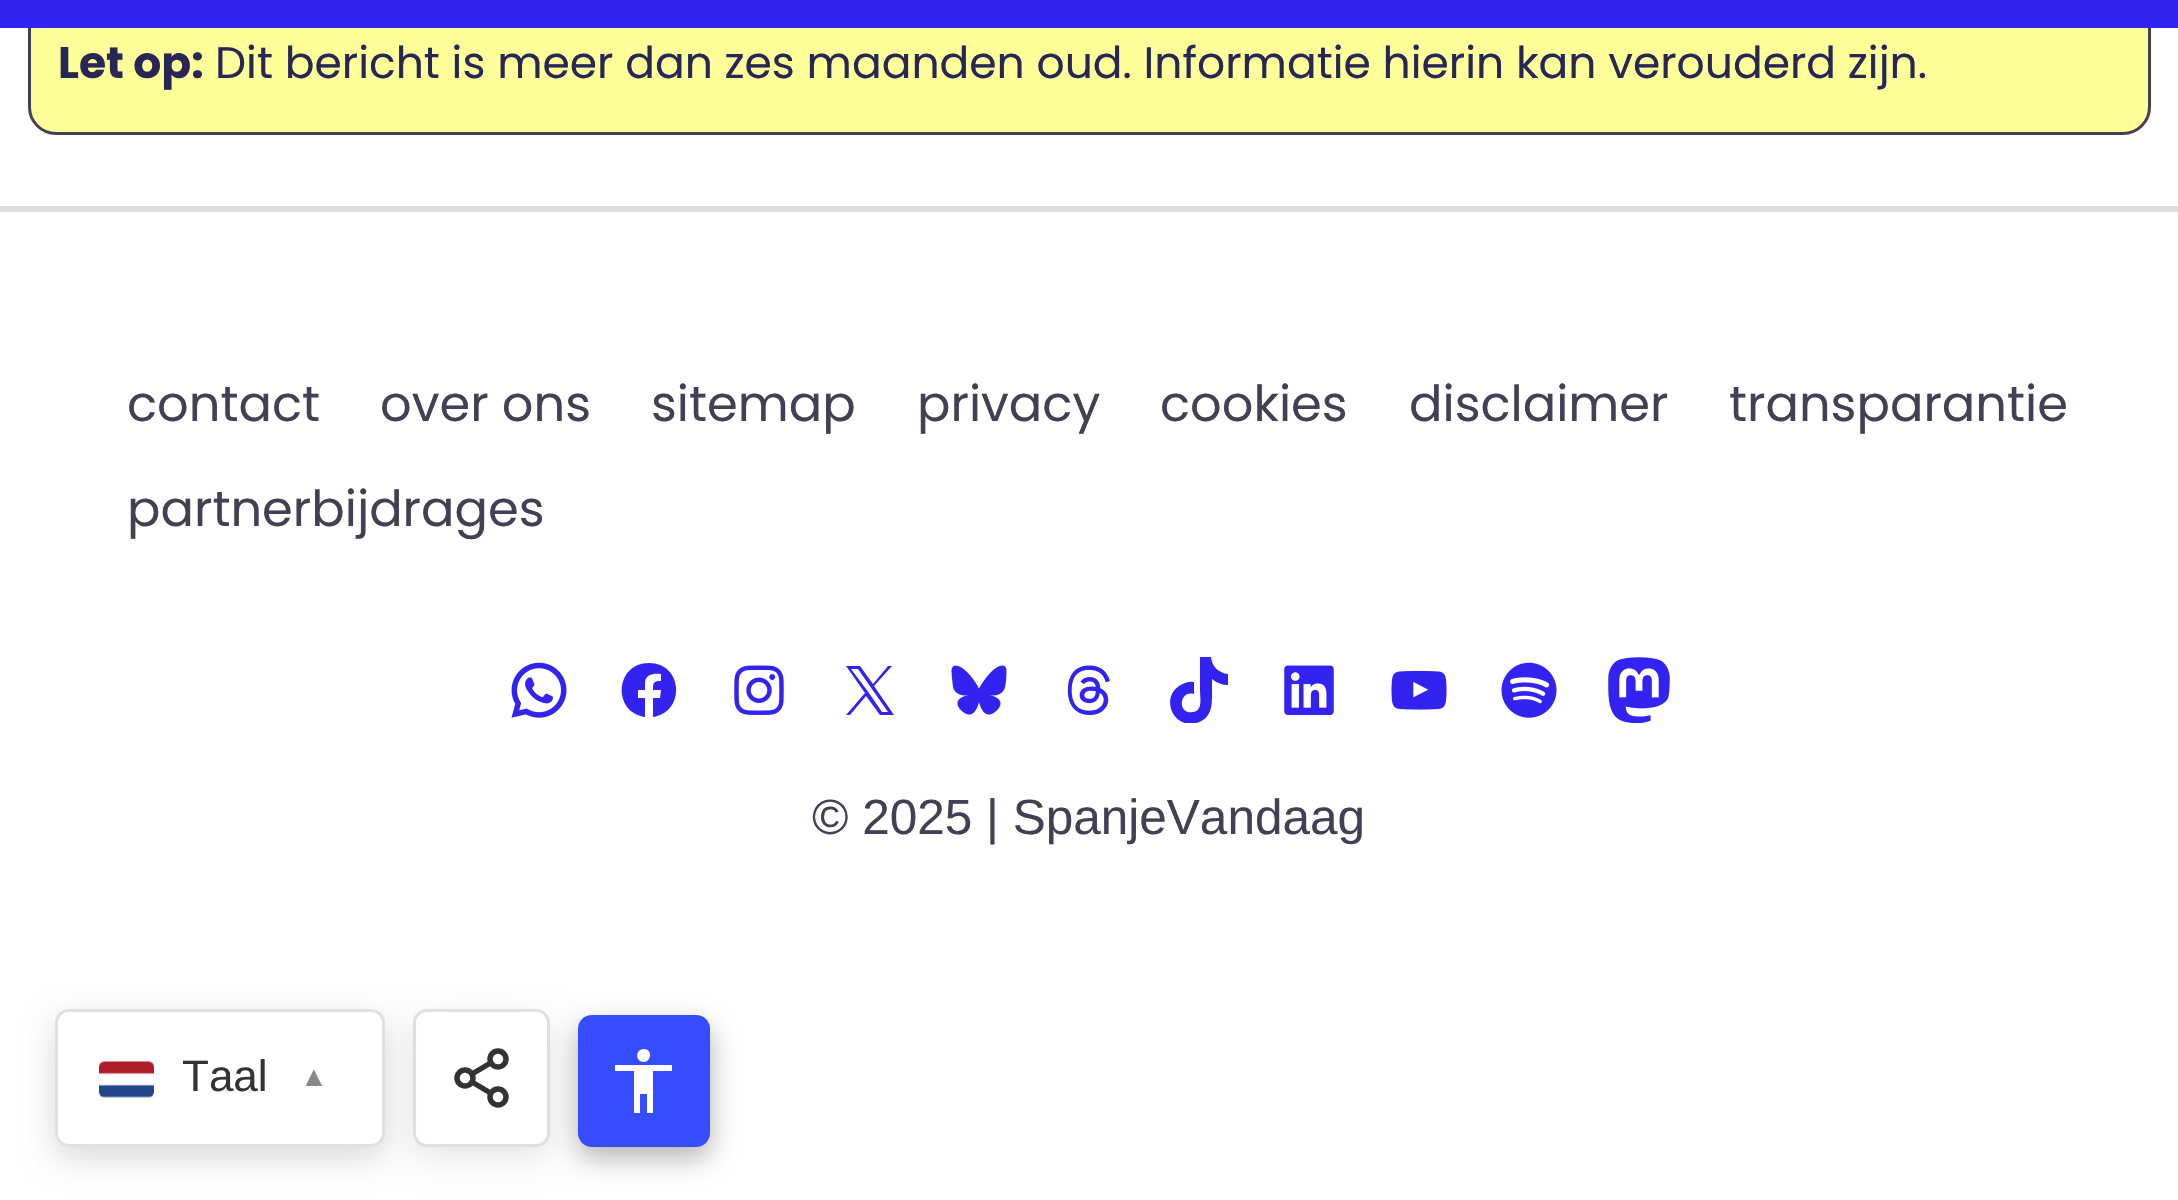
static SkFont makeFont(const char* family, int weight, float size, bool italic = false) {
  SkFontStyle style(weight, SkFontStyle::kNormal_Width,
    italic ? SkFontStyle::kItalic_Slant : SkFontStyle::kUpright_Slant);
  SkFont result(fontMgr->matchFamilyStyle(family, style), size);
  result.setSubpixel(true);
  return result;
}

static void text(SkCanvas* c, const char* s, float x, float y, const SkFont& font, SkColor color) {
  SkPaint ink(SkColor4f::FromColor(color));
  ink.setAntiAlias(true);
  c->drawString(s, x, y, font, ink);
}

static void box(SkCanvas* c, float l, float t, float r, float b, SkColor color) {
  SkPaint ink(SkColor4f::FromColor(color));
  ink.setAntiAlias(true);
  c->drawRect(SkRect::MakeLTRB(l, t, r, b), ink);
}

static void roundBox(SkCanvas* c, float l, float t, float r, float b, float radius, SkColor color) {
  SkPaint ink(SkColor4f::FromColor(color));
  ink.setAntiAlias(true);
  c->drawRoundRect(SkRect::MakeLTRB(l, t, r, b), radius, radius, ink);
}

static void picture(SkCanvas* c, const char* path, float l, float t, float r, float b) {
  auto image = SkImages::DeferredFromEncodedData(SkData::MakeFromFileName(path));
  c->drawImageRect(image, SkRect::MakeLTRB(l, t, r, b), SkSamplingOptions());
}

void draw(SkCanvas* c) {
  SkPaint paint;
  paint.setAntiAlias(true);
  c->clear(0xffffffff);
  paint.setColor(0xffffff99);
  c->drawRoundRect(SkRect::MakeLTRB(29.5f, -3.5f, 2149.5f, 133.5f), 26.5f, 26.5f, paint);
  paint.setStyle(SkPaint::kStroke_Style);
  paint.setStrokeWidth(3);
  paint.setColor(0xff443f54);
  c->drawRoundRect(SkRect::MakeLTRB(29.5f, -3.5f, 2149.5f, 133.5f), 26.5f, 26.5f, paint);
  box(c, 0, 0, 2178, 28, 0xff3323f0);
  SkFont face1 = makeFont("Poppins", 700, 44);
  text(c, "Let op:", 58, 78, face1, 0xff262657);
  SkFont face2 = makeFont("Poppins", 400, 44);
  text(c, "Dit bericht is meer dan zes maanden oud. Informatie hierin kan verouderd zijn.", 215, 78, face2, 0xff262657);
  box(c, 0, 206, 2178, 212, 0xffdfdfdf);
  SkFont face3 = makeFont("Poppins", 400, 49.5f);
  text(c, "contact", 127, 421, face3, 0xff443f54);
  text(c, "over ons", 380, 421, face3, 0xff443f54);
  text(c, "sitemap", 651, 421, face3, 0xff443f54);
  text(c, "privacy", 917, 421, face3, 0xff443f54);
  text(c, "cookies", 1160, 421, face3, 0xff443f54);
  text(c, "disclaimer", 1409, 421, face3, 0xff443f54);
  text(c, "transparantie", 1729, 421, face3, 0xff443f54);
  text(c, "partnerbijdrages", 127, 526, face3, 0xff443f54);
  picture(c, "img_01.png", 511, 662, 567, 718);
  paint.setStyle(SkPaint::kFill_Style);
  paint.setColor(0xff3323f0);
  c->drawPath(SkPathBuilder().moveTo(649, 663).cubicTo(615, 663, 612, 712, 645, 717).lineTo(645, 698).lineTo(638, 698).lineTo(638, 690).lineTo(645, 690).lineTo(645, 682).cubicTo(646, 674, 654, 673, 661, 674).lineTo(661, 681).cubicTo(653, 681, 653, 683, 653, 690).lineTo(661, 690).lineTo(660, 698).lineTo(653, 698).lineTo(653, 717).cubicTo(686, 712, 683, 663, 649, 663).close().detach(), paint);
  picture(c, "img_02.png", 734, 665, 784, 715);
  c->drawPath(SkPathBuilder().moveTo(874, 686).lineTo(892, 666).lineTo(888, 666).lineTo(873, 684).lineTo(860, 666).lineTo(846, 666).lineTo(865, 693).lineTo(846, 715).lineTo(850, 715).lineTo(866, 696).lineTo(880, 715).lineTo(894, 715).close().moveTo(869, 693).lineTo(851, 669).lineTo(858, 669).lineTo(888, 712).lineTo(882, 712).close().detach(), paint);
  picture(c, "img_03.png", 951, 665, 1007, 715);
  picture(c, "img_04.png", 1067, 665, 1110, 715);
  c->save();
  c->clipRect(SkRect::MakeLTRB(1166, 657, 1232, 723));
  c->drawPath(SkPathBuilder().moveTo(1200, 657).lineTo(1211, 657).cubicTo(1212, 667, 1219, 673, 1228, 674).lineTo(1228, 685).cubicTo(1222, 685, 1217, 683, 1212, 679).lineTo(1212, 695).cubicTo(1212, 707, 1211, 719, 1196, 723).cubicTo(1174, 729, 1160, 699, 1179, 686).cubicTo(1184, 683, 1189, 681, 1194, 682).lineTo(1194, 694).cubicTo(1179, 690, 1177, 715, 1193, 712).cubicTo(1203, 711, 1200, 698, 1200, 690).close().detach(), paint);
  c->restore();
  picture(c, "img_05.png", 1284, 665, 1334, 715);
  picture(c, "img_06.png", 1391, 670, 1447, 710);
  picture(c, "img_07.png", 1501, 662, 1557, 718);
  picture(c, "img_08.png", 1608, 657, 1670, 723);
  SkFont face4 = makeFont("Liberation Sans", 400, 49.5f);
  text(c, "© 2025 | SpanjeVandaag", 812, 834, face4, 0xff443f54);
  paint.setColor(0x1a000000);
  paint.setMaskFilter(SkMaskFilter::MakeBlur(kNormal_SkBlurStyle, 16.5f));
  c->drawRoundRect(SkRect::MakeLTRB(413, 1020, 550, 1158), 14, 14, paint);
  paint.setMaskFilter(nullptr);
  paint.setColor(0xffffffff);
  c->drawRoundRect(SkRect::MakeLTRB(414.5f, 1010.5f, 548.5f, 1145.5f), 12.5f, 12.5f, paint);
  paint.setStyle(SkPaint::kStroke_Style);
  paint.setColor(0xffe0e0e0);
  c->drawRoundRect(SkRect::MakeLTRB(414.5f, 1010.5f, 548.5f, 1145.5f), 12.5f, 12.5f, paint);
  paint.setStyle(SkPaint::kFill_Style);
  paint.setColor(0x26000000);
  paint.setMaskFilter(SkMaskFilter::MakeBlur(kNormal_SkBlurStyle, 16.5f));
  c->drawRoundRect(SkRect::MakeLTRB(55, 1020, 385, 1158), 14, 14, paint);
  paint.setMaskFilter(nullptr);
  paint.setColor(0xffffffff);
  c->drawRoundRect(SkRect::MakeLTRB(56.5f, 1010.5f, 383.5f, 1145.5f), 12.5f, 12.5f, paint);
  paint.setStyle(SkPaint::kStroke_Style);
  paint.setColor(0xffe0e0e0);
  c->drawRoundRect(SkRect::MakeLTRB(56.5f, 1010.5f, 383.5f, 1145.5f), 12.5f, 12.5f, paint);
  picture(c, "img_09.png", 99, 1061, 154, 1098);
  SkFont face5 = makeFont("Liberation Sans", 400, 44);
  text(c, "Taal", 182, 1091, face5, 0xff333333);
  SkFont face6 = makeFont("Liberation Sans", 400, 28);
  text(c, "▲", 300, 1086, face6, 0xff888888);
  paint.setStrokeWidth(5.5f);
  paint.setColor(0xff333333);
  c->drawCircle(498, 1059, 8, paint);
  c->drawCircle(465, 1078, 8, paint);
  c->drawCircle(498, 1097, 8, paint);
  paint.setStrokeCap(SkPaint::kRound_Cap);
  paint.setStrokeJoin(SkPaint::kRound_Join);
  c->drawPath(SkPathBuilder().moveTo(472, 1082).lineTo(490.5f, 1093).moveTo(490.5f, 1063).lineTo(472, 1074).detach(), paint);
  paint.setStyle(SkPaint::kFill_Style);
  paint.setColor(0x4d000000);
  paint.setMaskFilter(SkMaskFilter::MakeBlur(kNormal_SkBlurStyle, 14));
  c->drawRoundRect(SkRect::MakeLTRB(578, 1026, 710, 1158), 14, 14, paint);
  paint.setMaskFilter(nullptr);
  roundBox(c, 578, 1015, 710, 1147, 14, 0xff354cff);
  paint.setColor(0xffffffff);
  c->drawPath(SkPathBuilder().moveTo(644, 1049).cubicTo(652, 1049, 652, 1061, 644, 1062).cubicTo(635, 1062, 635, 1049, 644, 1049).close().moveTo(672, 1071).lineTo(653, 1071).lineTo(653, 1113).lineTo(647, 1113).lineTo(647, 1094).lineTo(640, 1094).lineTo(640, 1113).lineTo(634, 1113).lineTo(634, 1071).lineTo(615, 1071).lineTo(615, 1065).lineTo(672, 1065).close().detach(), paint);
}
